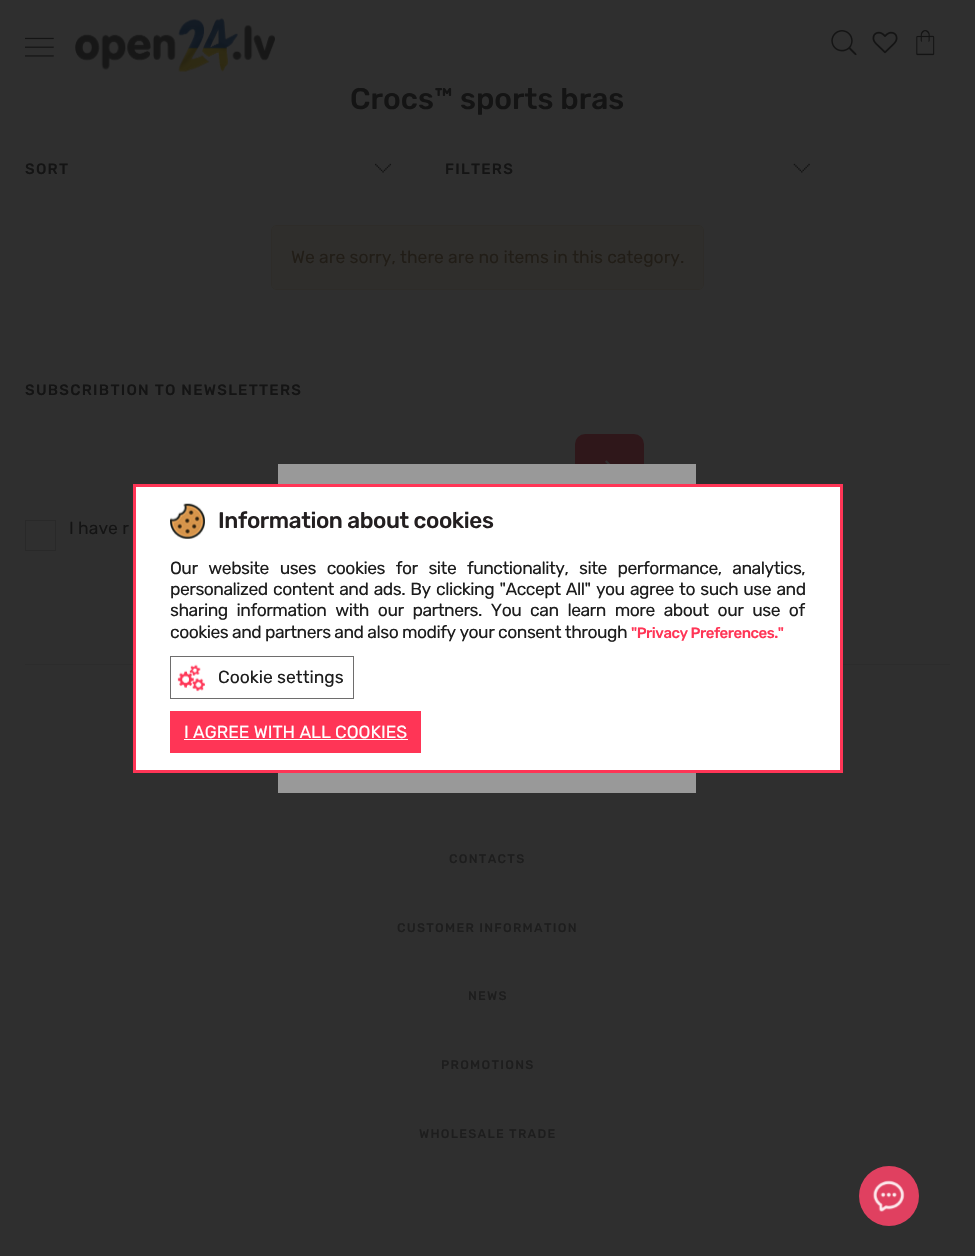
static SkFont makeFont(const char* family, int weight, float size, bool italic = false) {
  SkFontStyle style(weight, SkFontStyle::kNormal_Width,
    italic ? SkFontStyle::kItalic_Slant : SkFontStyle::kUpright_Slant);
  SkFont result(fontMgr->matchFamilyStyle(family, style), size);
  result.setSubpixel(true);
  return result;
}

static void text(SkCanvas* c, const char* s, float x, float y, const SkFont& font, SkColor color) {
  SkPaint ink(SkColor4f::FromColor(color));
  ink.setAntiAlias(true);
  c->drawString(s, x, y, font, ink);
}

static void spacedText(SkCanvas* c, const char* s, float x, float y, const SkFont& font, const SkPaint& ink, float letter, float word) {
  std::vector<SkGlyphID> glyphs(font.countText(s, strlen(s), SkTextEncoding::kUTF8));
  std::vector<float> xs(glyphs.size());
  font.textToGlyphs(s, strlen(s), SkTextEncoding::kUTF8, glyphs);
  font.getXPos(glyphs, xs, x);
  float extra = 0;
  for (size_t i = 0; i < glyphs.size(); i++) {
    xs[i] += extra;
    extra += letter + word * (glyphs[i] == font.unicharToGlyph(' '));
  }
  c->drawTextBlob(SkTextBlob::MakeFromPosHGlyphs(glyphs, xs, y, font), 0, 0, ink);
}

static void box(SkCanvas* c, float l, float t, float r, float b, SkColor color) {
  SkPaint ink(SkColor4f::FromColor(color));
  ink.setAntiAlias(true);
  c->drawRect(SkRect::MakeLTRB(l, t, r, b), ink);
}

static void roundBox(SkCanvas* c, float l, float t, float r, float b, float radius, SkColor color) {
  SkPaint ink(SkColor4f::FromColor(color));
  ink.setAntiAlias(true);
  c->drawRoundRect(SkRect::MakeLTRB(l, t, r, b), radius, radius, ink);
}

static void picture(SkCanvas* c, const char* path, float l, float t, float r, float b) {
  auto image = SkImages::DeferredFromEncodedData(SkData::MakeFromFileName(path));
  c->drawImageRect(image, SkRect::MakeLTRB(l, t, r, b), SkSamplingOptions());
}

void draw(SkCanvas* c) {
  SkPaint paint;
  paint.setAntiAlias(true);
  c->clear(0xff2f2f2f);
  SkFont face1 = makeFont("Rubik", 500, 30);
  text(c, "Crocs™ sports bras", 350, 109, face1, 0xff141414);
  box(c, 359, 87, 566, 88, 0xff2f2f2f);
  picture(c, "img_01.png", 25, 37, 54, 57);
  picture(c, "img_02.png", 75, 18, 275, 72);
  picture(c, "img_03.png", 831, 30, 857, 56);
  picture(c, "img_04.png", 872, 31, 898, 54);
  picture(c, "img_05.png", 916, 30, 935, 56);
  SkFont face2 = makeFont("Rubik", 500, 15);
  paint.setColor(0xff141414);
  spacedText(c, "SORT", 25, 174, face2, paint, 1.25f, 0);
  picture(c, "img_06.png", 375, 163, 392, 173);
  spacedText(c, "FILTERS", 445, 174, face2, paint, 1.25f, 0);
  picture(c, "img_07.png", 793, 163, 810, 173);
  paint.setColor(0xff2f2e2c);
  c->drawRoundRect(SkRect::MakeLTRB(271.5f, 225.5f, 703.5f, 289.5f), 4.5f, 4.5f, paint);
  paint.setStyle(SkPaint::kStroke_Style);
  paint.setStrokeWidth(1);
  paint.setColor(0xff2e2c29);
  c->drawRoundRect(SkRect::MakeLTRB(271.5f, 225.5f, 703.5f, 289.5f), 4.5f, 4.5f, paint);
  SkFont face3 = makeFont("Rubik", 300, 17.5f);
  text(c, "We are sorry, there are no items in this category.", 291, 263, face3, 0xff211d17);
  paint.setStyle(SkPaint::kFill_Style);
  paint.setColor(0xff141414);
  spacedText(c, "SUBSCRIBTION TO NEWSLETTERS", 25, 395, face2, paint, 1.25f, 0);
  roundBox(c, 575, 434, 644, 503, 10, 0xff2f171a);
  picture(c, "img_08.png", 605, 460, 611, 464);
  paint.setStyle(SkPaint::kStroke_Style);
  paint.setColor(0xff292929);
  c->drawRect(SkRect::MakeLTRB(25.5f, 520.5f, 55.5f, 550.5f), paint);
  text(c, "I have r", 69, 534, face3, 0xff141414);
  box(c, 25, 664, 950, 665, 0xff2c2c2c);
  SkFont face4 = makeFont("Rubik", 500, 12.5f);
  paint.setStyle(SkPaint::kFill_Style);
  paint.setColor(0xff1d1d1d);
  spacedText(c, "CONTACTS", 449, 863, face4, paint, 1.25f, 0);
  spacedText(c, "CUSTOMER INFORMATION", 397, 932, face4, paint, 1.25f, 0);
  spacedText(c, "NEWS", 468, 1000, face4, paint, 1.25f, 0);
  spacedText(c, "PROMOTIONS", 441, 1069, face4, paint, 1.25f, 0);
  spacedText(c, "WHOLESALE TRADE", 419, 1138, face4, paint, 1.25f, 0);
  box(c, 278, 464, 696, 793, 0xff999999);
  paint.setColor(0xffffffff);
  c->drawRect(SkRect::MakeLTRB(134.5f, 485.5f, 841.5f, 771.5f), paint);
  paint.setStyle(SkPaint::kStroke_Style);
  paint.setStrokeWidth(3);
  paint.setColor(0xffff3556);
  c->drawRect(SkRect::MakeLTRB(134.5f, 485.5f, 841.5f, 771.5f), paint);
  picture(c, "img_09.png", 170, 503, 205, 539);
  SkFont face5 = makeFont("Rubik", 500, 22.5f);
  paint.setStyle(SkPaint::kFill_Style);
  paint.setColor(0xff231f20);
  spacedText(c, "Information about cookies", 218, 528, face5, paint, -0.4f, 0);
  paint.setColor(0xff1d1d1d);
  spacedText(c, "Our website uses cookies for site functionality, site performance, analytics,", 170, 574, face3, paint, -0.5f, 7);
  spacedText(c, "personalized content and ads. By clicking \"Accept All\" you agree to such use and", 170, 595, face3, paint, -0.5f, 1.5f);
  spacedText(c, "sharing information with our partners. You can learn more about our use of", 170, 616, face3, paint, -0.5f, 5.1f);
  spacedText(c, "cookies and partners and also modify your consent through", 170, 638, face3, paint, -0.5f, 0);
  paint.setColor(0xffff3556);
  spacedText(c, "\"Privacy Preferences.\"", 631, 638, face2, paint, -0.5f, 0);
  paint.setStyle(SkPaint::kStroke_Style);
  paint.setStrokeWidth(1);
  paint.setColor(0xff6e6d6d);
  c->drawRect(SkRect::MakeLTRB(170.5f, 656.5f, 353.5f, 698.5f), paint);
  picture(c, "img_10.png", 177, 664, 205, 692);
  text(c, "Cookie settings", 218, 683, face3, 0xff1d1d1d);
  box(c, 170, 711, 421, 753, 0xffff3556);
  text(c, "I AGREE WITH ALL COOKIES", 184, 738, face3, 0xffffffff);
  box(c, 184, 739, 408, 740, 0xffffffff);
  paint.setStyle(SkPaint::kFill_Style);
  paint.setColor(0xffe04060);
  c->drawCircle(889, 1196, 30, paint);
  picture(c, "img_11.png", 872, 1180, 905, 1212);
}
